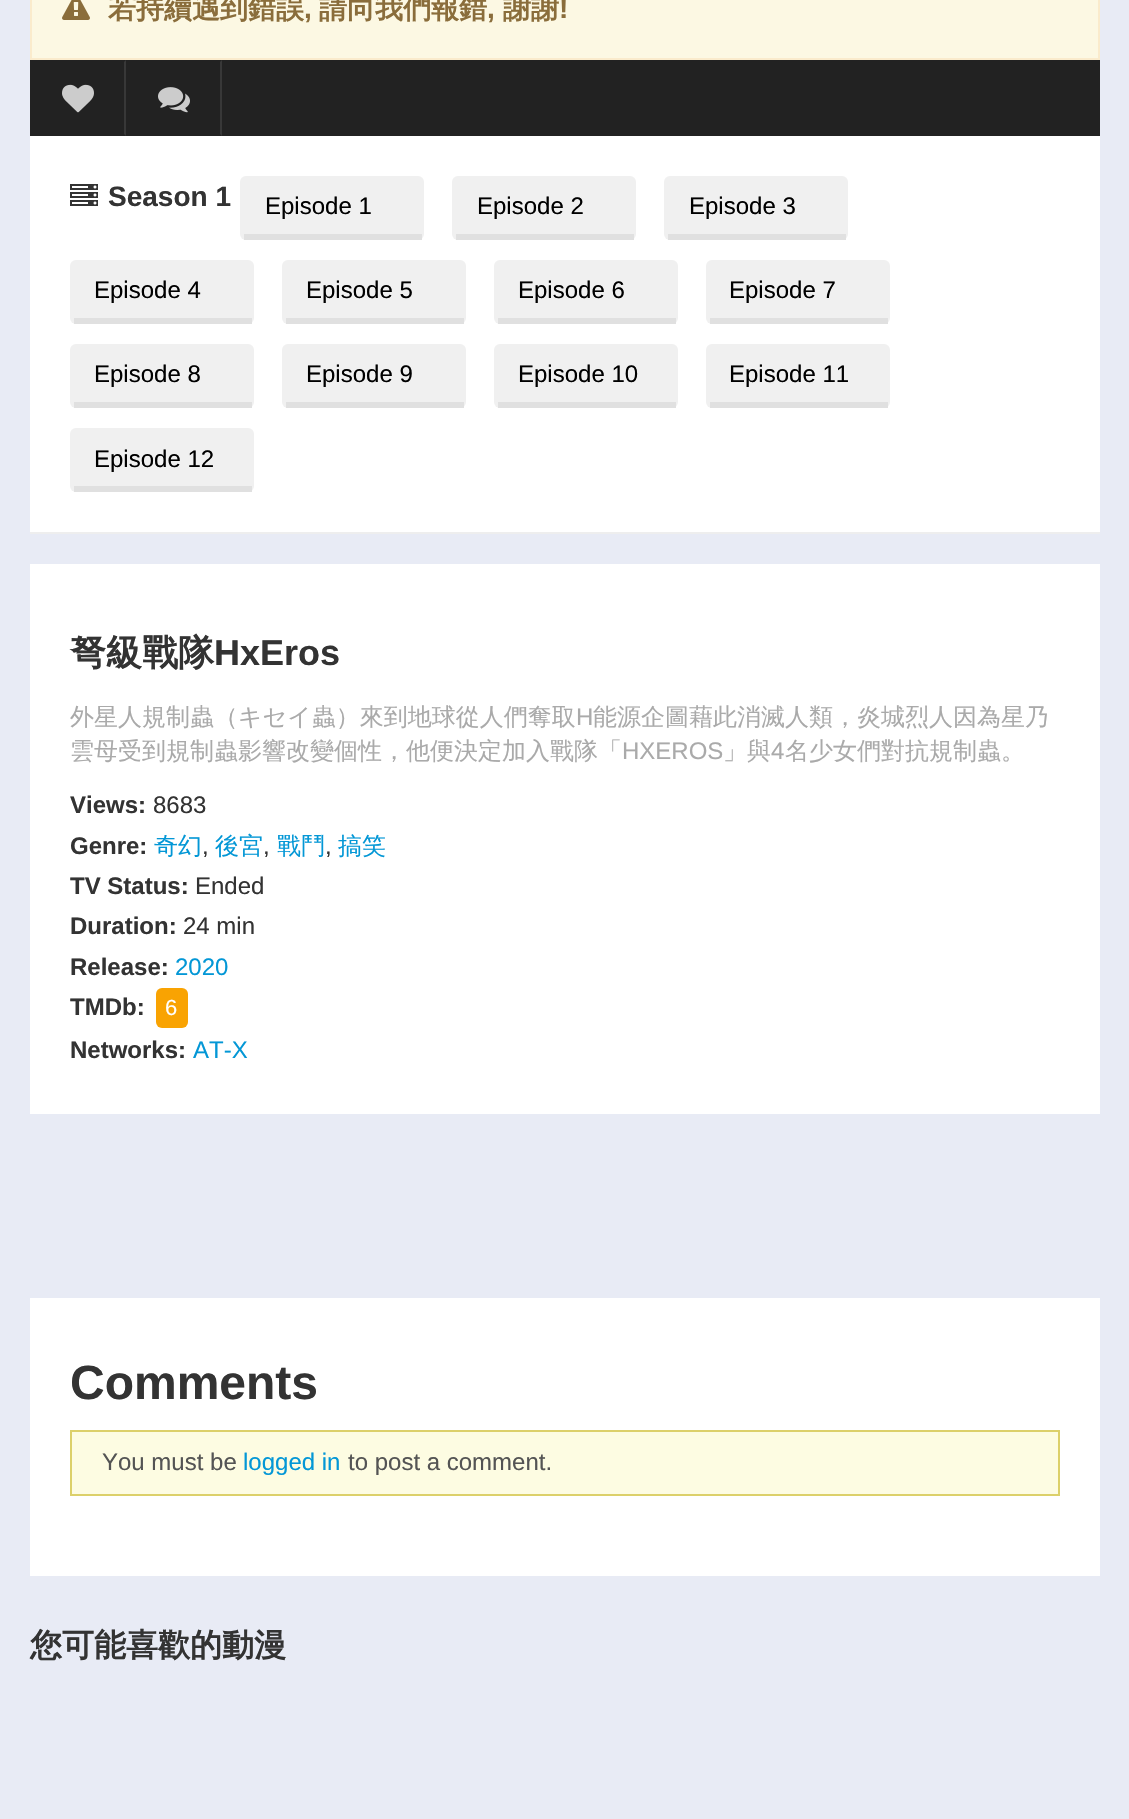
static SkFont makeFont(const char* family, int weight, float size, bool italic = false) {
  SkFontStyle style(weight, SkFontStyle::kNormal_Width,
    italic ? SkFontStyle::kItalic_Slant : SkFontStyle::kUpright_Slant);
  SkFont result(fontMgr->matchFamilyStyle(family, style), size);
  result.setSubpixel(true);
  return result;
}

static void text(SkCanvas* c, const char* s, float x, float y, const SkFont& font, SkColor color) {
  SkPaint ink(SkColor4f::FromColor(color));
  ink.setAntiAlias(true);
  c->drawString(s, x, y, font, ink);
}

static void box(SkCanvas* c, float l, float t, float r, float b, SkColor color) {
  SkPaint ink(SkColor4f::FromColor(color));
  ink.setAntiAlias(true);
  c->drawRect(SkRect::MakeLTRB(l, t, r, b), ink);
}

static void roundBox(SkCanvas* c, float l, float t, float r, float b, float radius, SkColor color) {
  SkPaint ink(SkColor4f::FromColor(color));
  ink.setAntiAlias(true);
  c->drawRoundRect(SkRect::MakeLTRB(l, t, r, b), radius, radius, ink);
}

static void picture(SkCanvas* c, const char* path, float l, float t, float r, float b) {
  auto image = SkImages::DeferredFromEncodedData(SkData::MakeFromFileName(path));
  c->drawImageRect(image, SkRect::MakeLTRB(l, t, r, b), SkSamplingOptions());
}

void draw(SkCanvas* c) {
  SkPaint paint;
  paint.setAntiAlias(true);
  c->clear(0xffe8ebf5);
  paint.setColor(0xfffcf8e3);
  c->drawRect(SkRect::MakeLTRB(31, -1, 1099, 59), paint);
  paint.setStyle(SkPaint::kStroke_Style);
  paint.setStrokeWidth(2);
  paint.setColor(0xfffaebcc);
  c->drawRect(SkRect::MakeLTRB(31, -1, 1099, 59), paint);
  picture(c, "img_01.png", 62, 0, 90, 20);
  SkFont face1 = makeFont("WenQuanYi Zen Hei", 700, 28);
  text(c, "若持續遇到錯誤", 108, 18, face1, 0xff8a6d3b);
  SkFont face2 = makeFont("Liberation Sans", 700, 28);
  text(c, ",", 304, 18, face2, 0xff8a6d3b);
  text(c, "請向我們報錯", 319, 18, face1, 0xff8a6d3b);
  text(c, ",", 487, 18, face2, 0xff8a6d3b);
  text(c, "謝謝", 503, 18, face1, 0xff8a6d3b);
  text(c, "!", 559, 18, face2, 0xff8a6d3b);
  box(c, 30, 60, 1100, 136, 0xff222222);
  paint.setStyle(SkPaint::kFill_Style);
  paint.setColor(0xff383838);
  c->drawPath(SkPathBuilder().moveTo(126, 60).lineTo(126, 136).lineTo(124, 134).lineTo(124, 62).close().detach(), paint);
  picture(c, "img_02.png", 62, 84, 94, 113);
  c->drawPath(SkPathBuilder().moveTo(222, 60).lineTo(222, 136).lineTo(220, 134).lineTo(220, 62).close().detach(), paint);
  picture(c, "img_03.png", 158, 87, 190, 113);
  box(c, 30, 136, 1100, 532, 0xffffffff);
  box(c, 30, 532, 1100, 534, 0xffeeeeee);
  picture(c, "img_04.png", 70, 184, 98, 206);
  text(c, "Season 1", 108, 206, face2, 0xff333333);
  roundBox(c, 240, 176, 424, 240, 6, 0xfff0f0f0);
  box(c, 244, 234, 422, 240, 0xffe0e0e0);
  SkFont face3 = makeFont("Liberation Sans", 400, 24);
  text(c, "Episode 1", 265, 214, face3, 0xff000000);
  roundBox(c, 452, 176, 636, 240, 6, 0xfff0f0f0);
  box(c, 456, 234, 634, 240, 0xffe0e0e0);
  text(c, "Episode 2", 477, 214, face3, 0xff000000);
  roundBox(c, 664, 176, 848, 240, 6, 0xfff0f0f0);
  box(c, 668, 234, 846, 240, 0xffe0e0e0);
  text(c, "Episode 3", 689, 214, face3, 0xff000000);
  roundBox(c, 70, 260, 254, 324, 6, 0xfff0f0f0);
  box(c, 74, 318, 252, 324, 0xffe0e0e0);
  text(c, "Episode 4", 94, 298, face3, 0xff000000);
  roundBox(c, 282, 260, 466, 324, 6, 0xfff0f0f0);
  box(c, 286, 318, 464, 324, 0xffe0e0e0);
  text(c, "Episode 5", 306, 298, face3, 0xff000000);
  roundBox(c, 494, 260, 678, 324, 6, 0xfff0f0f0);
  box(c, 498, 318, 676, 324, 0xffe0e0e0);
  text(c, "Episode 6", 518, 298, face3, 0xff000000);
  roundBox(c, 706, 260, 890, 324, 6, 0xfff0f0f0);
  box(c, 710, 318, 888, 324, 0xffe0e0e0);
  text(c, "Episode 7", 729, 298, face3, 0xff000000);
  roundBox(c, 70, 344, 254, 408, 6, 0xfff0f0f0);
  box(c, 74, 402, 252, 408, 0xffe0e0e0);
  text(c, "Episode 8", 94, 382, face3, 0xff000000);
  roundBox(c, 282, 344, 466, 408, 6, 0xfff0f0f0);
  box(c, 286, 402, 464, 408, 0xffe0e0e0);
  text(c, "Episode 9", 306, 382, face3, 0xff000000);
  roundBox(c, 494, 344, 678, 408, 6, 0xfff0f0f0);
  box(c, 498, 402, 676, 408, 0xffe0e0e0);
  text(c, "Episode 10", 518, 382, face3, 0xff000000);
  roundBox(c, 706, 344, 890, 408, 6, 0xfff0f0f0);
  box(c, 710, 402, 888, 408, 0xffe0e0e0);
  text(c, "Episode 11", 729, 382, face3, 0xff000000);
  roundBox(c, 70, 428, 254, 492, 6, 0xfff0f0f0);
  box(c, 74, 486, 252, 492, 0xffe0e0e0);
  text(c, "Episode 12", 94, 467, face3, 0xff000000);
  box(c, 30, 564, 1100, 1114, 0xffffffff);
  SkFont face4 = makeFont("WenQuanYi Zen Hei", 700, 36);
  text(c, "弩級戰隊", 70, 665, face4, 0xff333333);
  SkFont face5 = makeFont("Liberation Sans", 700, 36);
  text(c, "HxEros", 214, 665, face5, 0xff333333);
  SkFont face6 = makeFont("WenQuanYi Zen Hei", 500, 24);
  text(c, "外星人規制蟲（キセイ蟲）來到地球從人們奪取", 70, 725, face6, 0xffaaaaaa);
  text(c, "H", 576, 725, face3, 0xffaaaaaa);
  text(c, "能源企圖藉此消滅人類，炎城烈人因為星乃", 593, 725, face6, 0xffaaaaaa);
  text(c, "雲母受到規制蟲影響改變個性，他便決定加入戰隊「", 70, 759, face6, 0xffaaaaaa);
  text(c, "HXEROS", 622, 759, face3, 0xffaaaaaa);
  text(c, "」與", 723, 759, face6, 0xffaaaaaa);
  text(c, "4", 771, 759, face3, 0xffaaaaaa);
  text(c, "名少女們對抗規制蟲。", 785, 759, face6, 0xffaaaaaa);
  SkFont face7 = makeFont("Liberation Sans", 700, 24);
  text(c, "Views:", 70, 813, face7, 0xff333333);
  text(c, "8683", 153, 813, face3, 0xff333333);
  text(c, "Genre:", 70, 854, face7, 0xff333333);
  text(c, "奇幻", 154, 854, face6, 0xff0397d6);
  text(c, ",", 202, 854, face3, 0xff333333);
  text(c, "後宮", 215, 854, face6, 0xff0397d6);
  text(c, ",", 263, 854, face3, 0xff333333);
  text(c, "戰鬥", 277, 854, face6, 0xff0397d6);
  text(c, ",", 325, 854, face3, 0xff333333);
  text(c, "搞笑", 338, 854, face6, 0xff0397d6);
  text(c, "TV Status:", 70, 894, face7, 0xff333333);
  text(c, "Ended", 195, 894, face3, 0xff333333);
  text(c, "Duration:", 70, 934, face7, 0xff333333);
  text(c, "24 min", 183, 934, face3, 0xff333333);
  text(c, "Release:", 70, 975, face7, 0xff333333);
  text(c, "2020", 175, 975, face3, 0xff0397d6);
  text(c, "TMDb:", 70, 1015, face7, 0xff333333);
  roundBox(c, 156, 988, 188, 1028, 6, 0xfff9a302);
  SkFont face8 = makeFont("Liberation Sans", 400, 22);
  text(c, "6", 165, 1015, face8, 0xffffffff);
  text(c, "Networks:", 70, 1058, face7, 0xff333333);
  text(c, "AT-X", 193, 1058, face3, 0xff0397d6);
  box(c, 30, 1298, 1100, 1576, 0xffffffff);
  SkFont face9 = makeFont("Liberation Sans", 700, 48);
  text(c, "Comments", 70, 1399, face9, 0xff333333);
  paint.setColor(0xfffdfce2);
  c->drawRect(SkRect::MakeLTRB(71, 1431, 1059, 1495), paint);
  paint.setStyle(SkPaint::kStroke_Style);
  paint.setColor(0xffdcd06a);
  c->drawRect(SkRect::MakeLTRB(71, 1431, 1059, 1495), paint);
  text(c, "You must be", 102, 1470, face3, 0xff545454);
  text(c, "logged in", 243, 1470, face3, 0xff0397d6);
  text(c, "to post a comment.", 348, 1470, face3, 0xff545454);
  SkFont face10 = makeFont("WenQuanYi Zen Hei", 700, 32);
  text(c, "您可能喜歡的動漫", 30, 1656, face10, 0xff333333);
}
